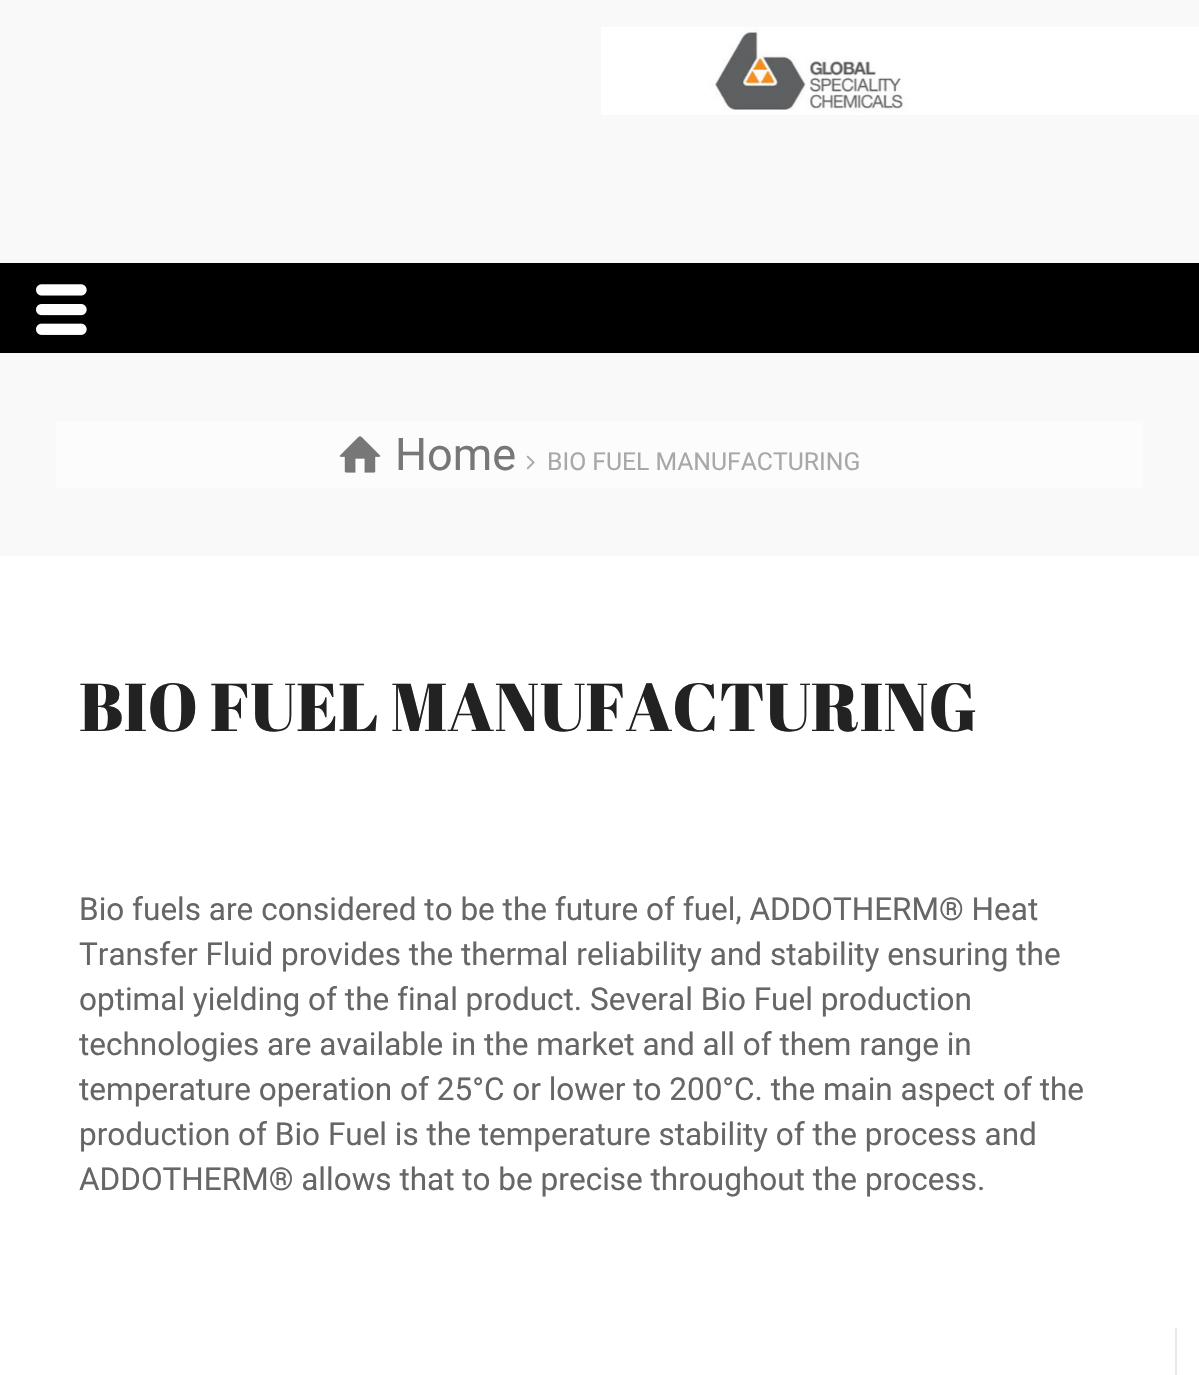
static SkFont makeFont(const char* family, int weight, float size, bool italic = false) {
  SkFontStyle style(weight, SkFontStyle::kNormal_Width,
    italic ? SkFontStyle::kItalic_Slant : SkFontStyle::kUpright_Slant);
  SkFont result(fontMgr->matchFamilyStyle(family, style), size);
  result.setSubpixel(true);
  return result;
}

static void text(SkCanvas* c, const char* s, float x, float y, const SkFont& font, SkColor color) {
  SkPaint ink(SkColor4f::FromColor(color));
  ink.setAntiAlias(true);
  c->drawString(s, x, y, font, ink);
}

static void box(SkCanvas* c, float l, float t, float r, float b, SkColor color) {
  SkPaint ink(SkColor4f::FromColor(color));
  ink.setAntiAlias(true);
  c->drawRect(SkRect::MakeLTRB(l, t, r, b), ink);
}

static void picture(SkCanvas* c, const char* path, float l, float t, float r, float b) {
  auto image = SkImages::DeferredFromEncodedData(SkData::MakeFromFileName(path));
  c->drawImageRect(image, SkRect::MakeLTRB(l, t, r, b), SkSamplingOptions());
}

void draw(SkCanvas* c) {
  SkPaint paint;
  paint.setAntiAlias(true);
  c->clear(0xfff9f9f9);
  picture(c, "img_01.png", 601, 27, 1199, 115);
  box(c, 0, 263, 1199, 353, 0xff000000);
  picture(c, "img_02.png", 36, 284, 87, 335);
  box(c, 56, 421, 1143, 488, 0xfffcfcfc);
  picture(c, "img_03.png", 339, 436, 381, 473);
  SkFont face1 = makeFont("Roboto", 400, 45);
  text(c, "Home", 395, 470, face1, 0xff777777);
  picture(c, "img_04.png", 526, 455, 535, 470);
  SkFont face2 = makeFont("Roboto", 400, 24.75f);
  text(c, "BIO FUEL MANUFACTURING", 547, 470, face2, 0xffa8a8a8);
  box(c, 0, 556, 1199, 1375, 0xffffffff);
  SkFont face3 = makeFont("Abril Fatface", 400, 67.5f);
  text(c, "BIO FUEL MANUFACTURING", 79, 731, face3, 0xff222222);
  SkFont face4 = makeFont("Roboto", 400, 31.5f);
  text(c, "Bio fuels are considered to be the future of fuel, ADDOTHERM® Heat", 79, 920, face4, 0xff666666);
  text(c, "Transfer Fluid provides the thermal reliability and stability ensuring the", 79, 965, face4, 0xff666666);
  text(c, "optimal yielding of the final product. Several Bio Fuel production", 79, 1010, face4, 0xff666666);
  text(c, "technologies are available in the market and all of them range in", 79, 1055, face4, 0xff666666);
  text(c, "temperature operation of 25°C or lower to 200°C. the main aspect of the", 79, 1100, face4, 0xff666666);
  text(c, "production of Bio Fuel is the temperature stability of the process and", 79, 1145, face4, 0xff666666);
  text(c, "ADDOTHERM® allows that to be precise throughout the process.", 79, 1190, face4, 0xff666666);
  box(c, 1175, 1328, 1177, 1375, 0xffe8e8e8);
}
